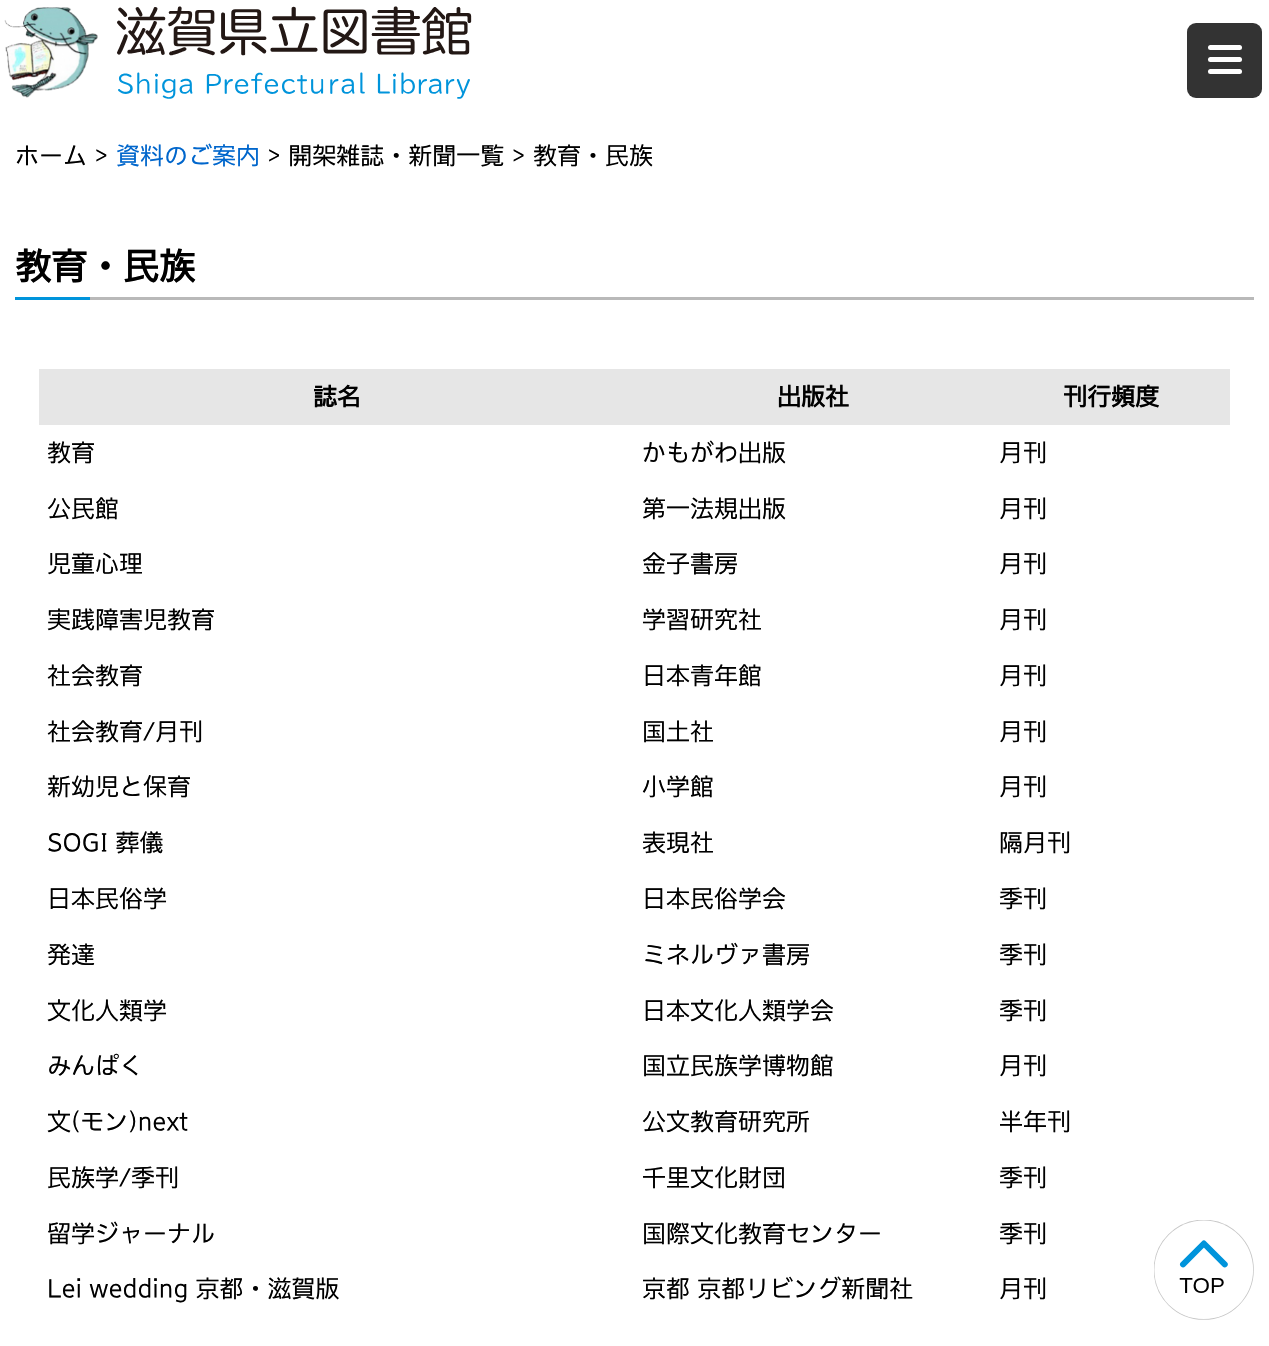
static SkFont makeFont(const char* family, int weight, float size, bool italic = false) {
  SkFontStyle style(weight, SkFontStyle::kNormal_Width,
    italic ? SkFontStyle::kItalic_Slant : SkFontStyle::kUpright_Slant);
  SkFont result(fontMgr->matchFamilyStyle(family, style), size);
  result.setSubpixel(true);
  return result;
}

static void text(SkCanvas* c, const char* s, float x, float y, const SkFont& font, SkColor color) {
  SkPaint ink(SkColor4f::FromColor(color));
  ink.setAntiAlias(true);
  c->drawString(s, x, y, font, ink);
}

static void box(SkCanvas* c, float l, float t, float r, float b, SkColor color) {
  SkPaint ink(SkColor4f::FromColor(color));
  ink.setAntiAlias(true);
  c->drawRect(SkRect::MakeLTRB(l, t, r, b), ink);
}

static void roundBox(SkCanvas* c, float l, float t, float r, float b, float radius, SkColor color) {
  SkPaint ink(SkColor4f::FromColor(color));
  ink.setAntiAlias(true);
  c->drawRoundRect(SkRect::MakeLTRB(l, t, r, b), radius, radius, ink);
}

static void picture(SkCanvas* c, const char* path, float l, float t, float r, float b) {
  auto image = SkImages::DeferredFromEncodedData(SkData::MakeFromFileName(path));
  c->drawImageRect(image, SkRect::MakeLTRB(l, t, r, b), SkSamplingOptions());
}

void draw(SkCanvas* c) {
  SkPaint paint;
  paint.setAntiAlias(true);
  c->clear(0xffffffff);
  picture(c, "img_01.png", 4, 7, 98, 98);
  picture(c, "img_02.png", 117, 6, 472, 99);
  roundBox(c, 1187, 23, 1262, 98, 9, 0xff333333);
  roundBox(c, 1208, 45, 1242, 50, 2.5f, 0xffffffff);
  roundBox(c, 1208, 57, 1242, 62, 2.5f, 0xffffffff);
  roundBox(c, 1208, 69, 1242, 74, 2.5f, 0xffffffff);
  SkFont face1 = makeFont("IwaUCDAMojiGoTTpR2", 400, 24);
  text(c, "ホーム >", 15, 164, face1, 0xff000000);
  text(c, "資料のご案内", 116, 164, face1, 0xff0066cc);
  text(c, "> 開架雑誌・新聞一覧 > 教育・民族", 267, 164, face1, 0xff000000);
  box(c, 90, 297, 1254, 300, 0xffb9b9b9);
  SkFont face2 = makeFont("IwaUCDAMojiGoTTpR2", 700, 36);
  text(c, "教育・民族", 15, 279, face2, 0xff000000);
  box(c, 15, 297, 90, 300, 0xff0094db);
  box(c, 39, 369, 1230, 425, 0xffe6e6e6);
  SkFont face3 = makeFont("IwaUCDAMojiGoTTpR2", 700, 24);
  text(c, "誌名", 313, 405, face3, 0xff000000);
  text(c, "出版社", 777, 405, face3, 0xff000000);
  text(c, "刊行頻度", 1063, 405, face3, 0xff000000);
  text(c, "教育", 47, 461, face1, 0xff000000);
  text(c, "かもがわ出版", 642, 461, face1, 0xff000000);
  text(c, "月刊", 999, 461, face1, 0xff000000);
  text(c, "公民館", 47, 517, face1, 0xff000000);
  text(c, "第一法規出版", 642, 517, face1, 0xff000000);
  text(c, "月刊", 999, 517, face1, 0xff000000);
  text(c, "児童心理", 47, 572, face1, 0xff000000);
  text(c, "金子書房", 642, 572, face1, 0xff000000);
  text(c, "月刊", 999, 572, face1, 0xff000000);
  text(c, "実践障害児教育", 47, 628, face1, 0xff000000);
  text(c, "学習研究社", 642, 628, face1, 0xff000000);
  text(c, "月刊", 999, 628, face1, 0xff000000);
  text(c, "社会教育", 47, 684, face1, 0xff000000);
  text(c, "日本青年館", 642, 684, face1, 0xff000000);
  text(c, "月刊", 999, 684, face1, 0xff000000);
  text(c, "社会教育/月刊", 47, 740, face1, 0xff000000);
  text(c, "国土社", 642, 740, face1, 0xff000000);
  text(c, "月刊", 999, 740, face1, 0xff000000);
  text(c, "新幼児と保育", 47, 795, face1, 0xff000000);
  text(c, "小学館", 642, 795, face1, 0xff000000);
  text(c, "月刊", 999, 795, face1, 0xff000000);
  text(c, "SOGI 葬儀", 47, 851, face1, 0xff000000);
  text(c, "表現社", 642, 851, face1, 0xff000000);
  text(c, "隔月刊", 999, 851, face1, 0xff000000);
  text(c, "日本民俗学", 47, 907, face1, 0xff000000);
  text(c, "日本民俗学会", 642, 907, face1, 0xff000000);
  text(c, "季刊", 999, 907, face1, 0xff000000);
  text(c, "発達", 47, 963, face1, 0xff000000);
  text(c, "ミネルヴァ書房", 642, 963, face1, 0xff000000);
  text(c, "季刊", 999, 963, face1, 0xff000000);
  text(c, "文化人類学", 47, 1019, face1, 0xff000000);
  text(c, "日本文化人類学会", 642, 1019, face1, 0xff000000);
  text(c, "季刊", 999, 1019, face1, 0xff000000);
  text(c, "みんぱく", 47, 1074, face1, 0xff000000);
  text(c, "国立民族学博物館", 642, 1074, face1, 0xff000000);
  text(c, "月刊", 999, 1074, face1, 0xff000000);
  text(c, "文(モン)next", 47, 1130, face1, 0xff000000);
  text(c, "公文教育研究所", 642, 1130, face1, 0xff000000);
  text(c, "半年刊", 999, 1130, face1, 0xff000000);
  text(c, "民族学/季刊", 47, 1186, face1, 0xff000000);
  text(c, "千里文化財団", 642, 1186, face1, 0xff000000);
  text(c, "季刊", 999, 1186, face1, 0xff000000);
  text(c, "留学ジャーナル", 47, 1242, face1, 0xff000000);
  text(c, "国際文化教育センター", 642, 1242, face1, 0xff000000);
  text(c, "季刊", 999, 1242, face1, 0xff000000);
  text(c, "Lei wedding 京都・滋賀版", 47, 1297, face1, 0xff000000);
  text(c, "京都 京都リビング新聞社", 642, 1297, face1, 0xff000000);
  text(c, "月刊", 999, 1297, face1, 0xff000000);
  picture(c, "img_03.png", 1154, 1220, 1254, 1320);
}
